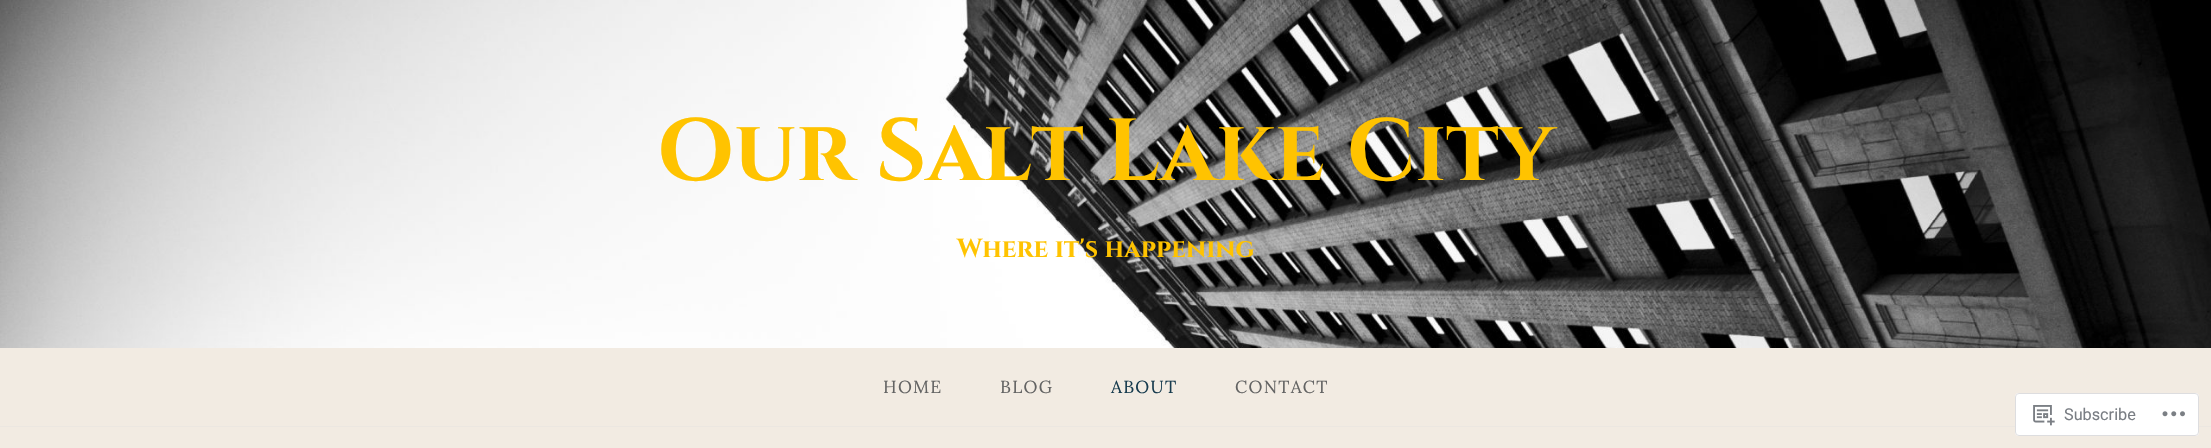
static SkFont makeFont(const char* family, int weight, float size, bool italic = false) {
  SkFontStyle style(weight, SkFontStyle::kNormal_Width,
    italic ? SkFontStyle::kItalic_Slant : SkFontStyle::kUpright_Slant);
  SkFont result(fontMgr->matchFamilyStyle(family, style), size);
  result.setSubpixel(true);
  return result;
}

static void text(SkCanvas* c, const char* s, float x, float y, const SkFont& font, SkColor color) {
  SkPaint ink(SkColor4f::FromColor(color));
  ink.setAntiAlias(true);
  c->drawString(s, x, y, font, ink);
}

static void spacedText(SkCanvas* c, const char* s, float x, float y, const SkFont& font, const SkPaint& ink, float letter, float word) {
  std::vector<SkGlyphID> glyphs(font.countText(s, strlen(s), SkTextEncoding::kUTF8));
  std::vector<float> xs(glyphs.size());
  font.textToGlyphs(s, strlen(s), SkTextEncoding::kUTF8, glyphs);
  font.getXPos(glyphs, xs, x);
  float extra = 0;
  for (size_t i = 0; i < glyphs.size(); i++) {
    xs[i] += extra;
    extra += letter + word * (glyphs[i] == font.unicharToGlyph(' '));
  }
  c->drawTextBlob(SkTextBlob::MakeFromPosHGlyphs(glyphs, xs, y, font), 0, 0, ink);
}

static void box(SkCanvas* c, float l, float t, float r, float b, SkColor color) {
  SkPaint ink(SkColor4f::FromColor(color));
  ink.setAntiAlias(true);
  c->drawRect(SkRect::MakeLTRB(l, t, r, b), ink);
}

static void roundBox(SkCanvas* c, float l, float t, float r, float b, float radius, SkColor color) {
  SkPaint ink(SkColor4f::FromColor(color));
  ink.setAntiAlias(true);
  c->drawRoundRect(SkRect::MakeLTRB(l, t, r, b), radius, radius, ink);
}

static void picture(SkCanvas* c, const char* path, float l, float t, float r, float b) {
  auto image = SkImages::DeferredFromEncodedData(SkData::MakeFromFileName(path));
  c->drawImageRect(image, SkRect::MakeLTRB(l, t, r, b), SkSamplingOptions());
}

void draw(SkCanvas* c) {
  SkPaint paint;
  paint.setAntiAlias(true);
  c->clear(0xfff2ebe2);
  picture(c, "img_01.png", 0, 0, 2211, 348);
  SkFont face1 = makeFont("Cinzel", 700, 87.75f);
  text(c, "Our Salt Lake City", 657, 180, face1, 0xffffc300);
  SkFont face2 = makeFont("Cinzel", 700, 26);
  text(c, "Where it's happening", 957, 257, face2, 0xffffc300);
  box(c, 0, 426, 2211, 427, 0xffece7e1);
  SkFont face3 = makeFont("Lora", 400, 17.5f);
  paint.setColor(0xff636363);
  spacedText(c, "HOME", 883, 393, face3, paint, 1.25f, 0);
  spacedText(c, "BLOG", 1000, 393, face3, paint, 1.25f, 0);
  paint.setColor(0xff173b4e);
  spacedText(c, "ABOUT", 1111, 393, face3, paint, 1.25f, 0);
  paint.setColor(0xff636363);
  spacedText(c, "CONTACT", 1235, 393, face3, paint, 1.25f, 0);
  roundBox(c, 2015, 393, 2199, 436, 4, 0xfaffffff);
  paint.setStyle(SkPaint::kStroke_Style);
  paint.setStrokeWidth(1);
  paint.setColor(0xfadcdcde);
  c->drawRoundRect(SkRect::MakeLTRB(2015.5f, 393.5f, 2198.5f, 435.5f), 3.5f, 3.5f, paint);
  picture(c, "img_02.png", 2033, 405, 2055, 426);
  SkFont face4 = makeFont("Roboto", 400, 16.25f);
  text(c, "Subscribe", 2064, 420, face4, 0xff7a7e84);
  picture(c, "img_03.png", 2162, 411, 2185, 417);
}
